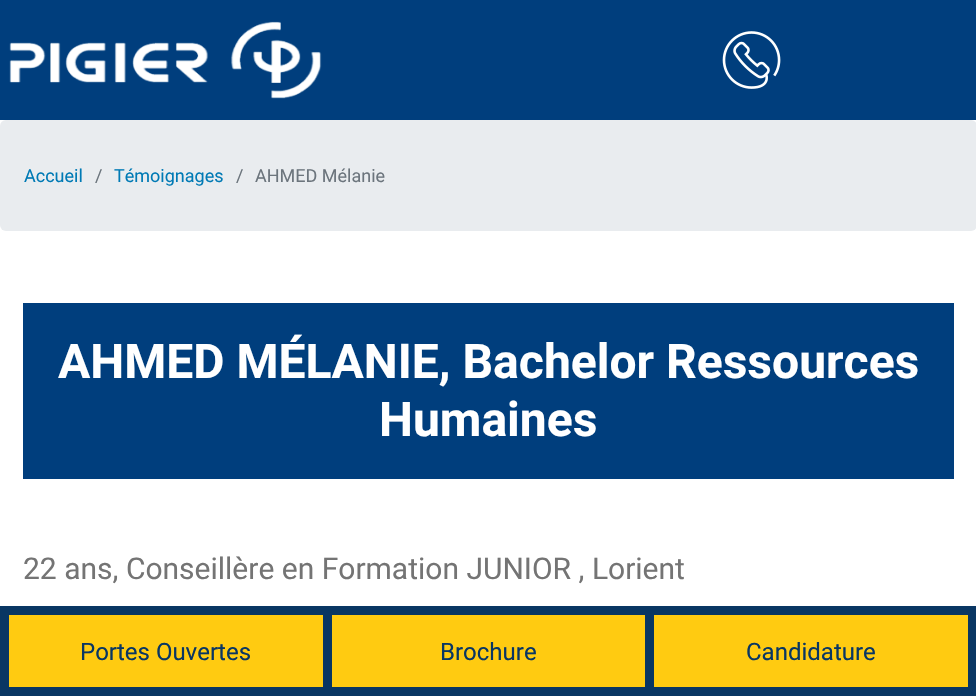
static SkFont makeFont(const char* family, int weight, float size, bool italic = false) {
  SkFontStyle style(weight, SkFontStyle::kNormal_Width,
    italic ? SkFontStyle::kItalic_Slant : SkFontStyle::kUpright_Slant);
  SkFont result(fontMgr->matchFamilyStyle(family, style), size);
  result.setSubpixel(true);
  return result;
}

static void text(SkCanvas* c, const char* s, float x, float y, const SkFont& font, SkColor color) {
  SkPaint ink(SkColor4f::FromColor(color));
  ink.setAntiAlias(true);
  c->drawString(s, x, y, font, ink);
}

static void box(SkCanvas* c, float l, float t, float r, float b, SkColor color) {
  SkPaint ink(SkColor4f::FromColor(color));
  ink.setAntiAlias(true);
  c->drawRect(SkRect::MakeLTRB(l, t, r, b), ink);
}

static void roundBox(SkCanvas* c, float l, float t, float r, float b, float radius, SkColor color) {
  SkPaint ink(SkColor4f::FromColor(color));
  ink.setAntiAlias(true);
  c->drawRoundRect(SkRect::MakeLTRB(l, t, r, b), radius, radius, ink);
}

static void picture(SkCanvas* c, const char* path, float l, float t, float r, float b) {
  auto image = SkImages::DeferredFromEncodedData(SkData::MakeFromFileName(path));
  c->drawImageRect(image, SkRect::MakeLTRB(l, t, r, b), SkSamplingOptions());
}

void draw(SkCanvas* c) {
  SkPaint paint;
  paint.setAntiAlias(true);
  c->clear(0xffffffff);
  box(c, 0, 0, 976, 120, 0xff003e7d);
  picture(c, "img_01.png", 9, 21, 322, 99);
  picture(c, "img_02.png", 722, 31, 781, 89);
  roundBox(c, 0, 120, 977, 231, 6, 0xffe9ecef);
  SkFont face1 = makeFont("Roboto", 400, 18);
  text(c, "Accueil", 24, 182, face1, 0xff007ab5);
  text(c, "/", 95, 182, face1, 0xff6c757d);
  text(c, "Témoignages", 114, 182, face1, 0xff007ab5);
  text(c, "/", 236, 182, face1, 0xff6c757d);
  text(c, "AHMED Mélanie", 255, 182, face1, 0xff6c757d);
  box(c, 23, 303, 954, 479, 0xff003e7d);
  SkFont face2 = makeFont("Roboto", 700, 48);
  text(c, "AHMED MÉLANIE, Bachelor Ressources", 58, 378, face2, 0xffffffff);
  text(c, "Humaines", 379, 436, face2, 0xffffffff);
  SkFont face3 = makeFont("Roboto", 400, 30);
  text(c, "22 ans, Conseillère en Formation JUNIOR , Lorient", 23, 579, face3, 0xff747474);
  box(c, 0, 606, 976, 696, 0xff093663);
  box(c, 9, 615, 323, 687, 0xffffcb11);
  SkFont face4 = makeFont("Roboto", 400, 24);
  text(c, "Portes Ouvertes", 80, 660, face4, 0xff093663);
  box(c, 332, 615, 645, 687, 0xffffcb11);
  text(c, "Brochure", 440, 660, face4, 0xff093663);
  box(c, 654, 615, 968, 687, 0xffffcb11);
  text(c, "Candidature", 746, 660, face4, 0xff093663);
}
